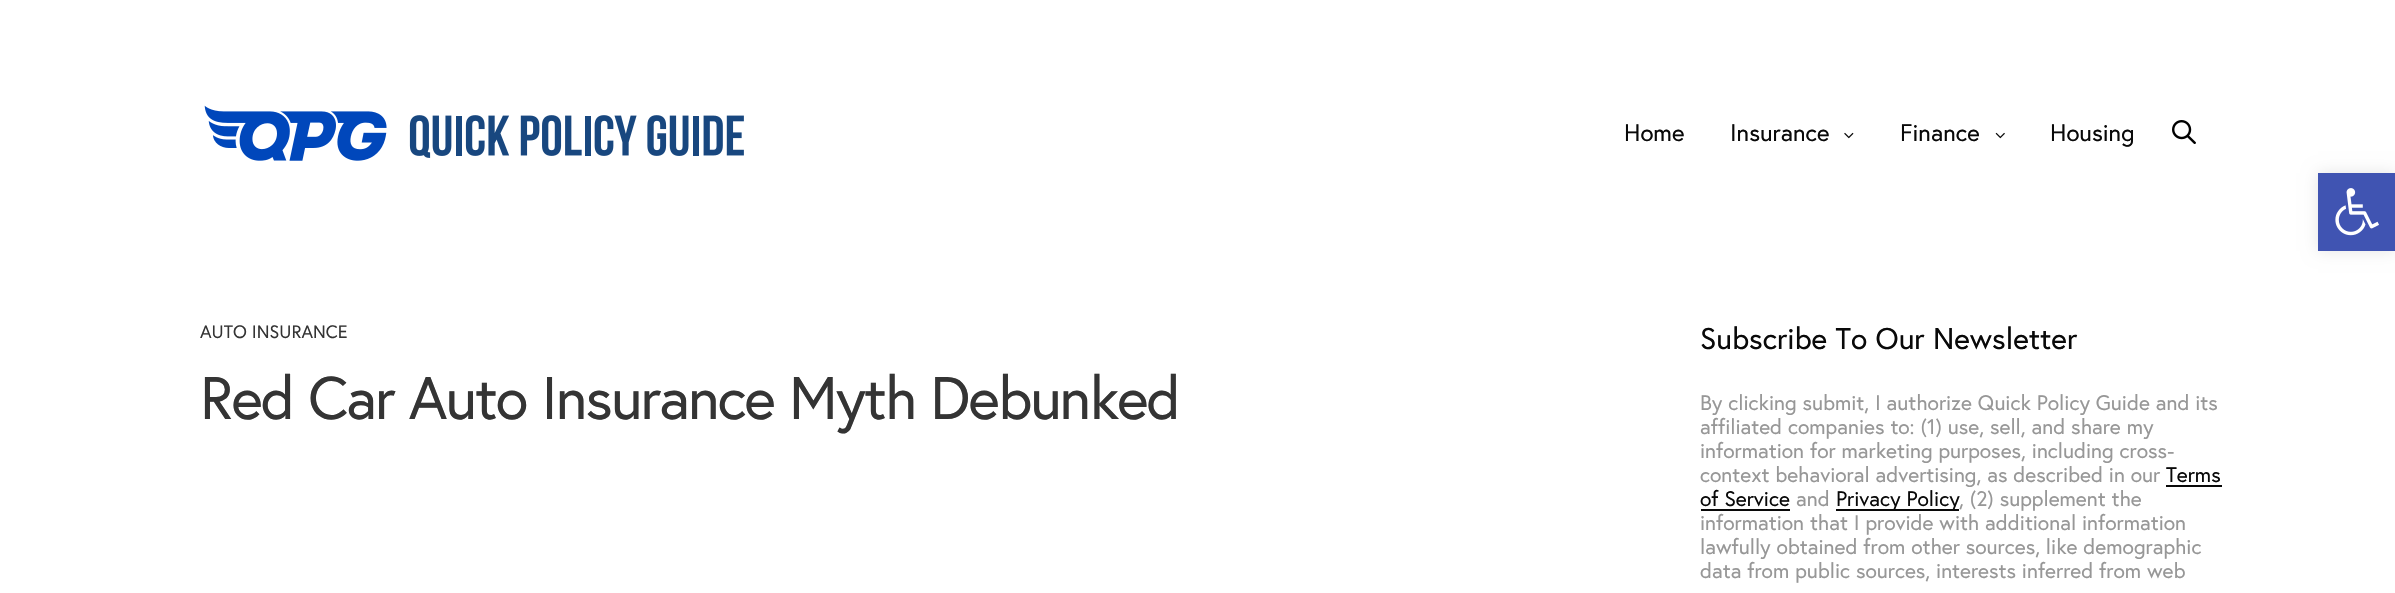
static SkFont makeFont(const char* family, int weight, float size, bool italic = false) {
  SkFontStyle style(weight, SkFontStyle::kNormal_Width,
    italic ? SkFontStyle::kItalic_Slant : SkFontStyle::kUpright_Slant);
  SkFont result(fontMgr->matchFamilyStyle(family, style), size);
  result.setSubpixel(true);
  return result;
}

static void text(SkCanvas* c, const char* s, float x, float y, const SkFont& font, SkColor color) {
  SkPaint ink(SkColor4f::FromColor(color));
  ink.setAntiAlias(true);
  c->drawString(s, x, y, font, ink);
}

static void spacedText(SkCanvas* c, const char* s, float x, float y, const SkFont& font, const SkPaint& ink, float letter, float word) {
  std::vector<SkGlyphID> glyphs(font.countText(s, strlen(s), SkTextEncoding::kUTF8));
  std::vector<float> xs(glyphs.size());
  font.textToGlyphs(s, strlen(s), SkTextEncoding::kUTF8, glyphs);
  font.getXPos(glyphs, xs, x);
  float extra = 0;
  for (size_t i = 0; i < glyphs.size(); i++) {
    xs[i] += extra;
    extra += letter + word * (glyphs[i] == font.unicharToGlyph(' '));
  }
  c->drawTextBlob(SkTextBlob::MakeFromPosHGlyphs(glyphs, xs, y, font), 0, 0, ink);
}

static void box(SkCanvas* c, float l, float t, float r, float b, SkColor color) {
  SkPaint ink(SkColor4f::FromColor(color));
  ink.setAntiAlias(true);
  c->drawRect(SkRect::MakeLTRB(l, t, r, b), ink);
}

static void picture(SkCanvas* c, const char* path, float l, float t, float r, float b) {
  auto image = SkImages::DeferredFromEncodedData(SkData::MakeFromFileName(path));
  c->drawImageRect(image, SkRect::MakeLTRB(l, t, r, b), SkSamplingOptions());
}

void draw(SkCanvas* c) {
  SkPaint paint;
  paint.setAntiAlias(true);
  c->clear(0xffffffff);
  picture(c, "img_01.png", 204, 105, 744, 161);
  SkFont face1 = makeFont("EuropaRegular", 400, 24);
  text(c, "Home", 1624, 141, face1, 0xff090909);
  text(c, "Insurance", 1730, 141, face1, 0xff090909);
  picture(c, "img_02.png", 1844, 132, 1854, 139);
  text(c, "Finance", 1900, 141, face1, 0xff090909);
  picture(c, "img_03.png", 1995, 132, 2005, 139);
  text(c, "Housing", 2050, 141, face1, 0xff090909);
  picture(c, "img_04.png", 2172, 120, 2196, 144);
  SkFont face2 = makeFont("EuropaRegular", 400, 18);
  text(c, "AUTO INSURANCE", 200, 338, face2, 0xff343434);
  SkFont face3 = makeFont("EuropaRegular", 400, 60);
  paint.setColor(0xff343434);
  spacedText(c, "Red Car Auto Insurance Myth Debunked", 200, 419, face3, paint, -1.8f, 0);
  SkFont face4 = makeFont("EuropaRegular", 400, 30);
  text(c, "Subscribe To Our Newsletter", 1700, 349, face4, 0xff090909);
  SkFont face5 = makeFont("EuropaRegular", 400, 21);
  text(c, "By clicking submit, I authorize Quick Policy Guide and its", 1700, 410, face5, 0xff979797);
  text(c, "affiliated companies to: (1) use, sell, and share my", 1700, 434, face5, 0xff979797);
  text(c, "information for marketing purposes, including cross-", 1700, 458, face5, 0xff979797);
  text(c, "context behavioral advertising, as described in our", 1700, 482, face5, 0xff979797);
  text(c, "Terms", 2166, 482, face5, 0xff090909);
  box(c, 2166, 485, 2222, 487, 0xff090909);
  text(c, "of Service", 1700, 506, face5, 0xff090909);
  box(c, 1701, 509, 1790, 511, 0xff090909);
  text(c, "and", 1796, 506, face5, 0xff979797);
  box(c, 1836, 509, 1959, 511, 0xff090909);
  text(c, "Privacy Policy", 1836, 506, face5, 0xff090909);
  text(c, ", (2) supplement the", 1959, 506, face5, 0xff979797);
  text(c, "information that I provide with additional information", 1700, 530, face5, 0xff979797);
  text(c, "lawfully obtained from other sources, like demographic", 1700, 554, face5, 0xff979797);
  text(c, "data from public sources, interests inferred from web", 1700, 578, face5, 0xff979797);
  paint.setColor(0x1a000000);
  paint.setMaskFilter(SkMaskFilter::MakeBlur(kNormal_SkBlurStyle, 7.5f));
  c->drawRect(SkRect::MakeLTRB(2318, 173, 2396, 251), paint);
  paint.setMaskFilter(nullptr);
  box(c, 2318, 173, 2395, 251, 0xff4054b2);
  picture(c, "img_05.png", 2335, 188, 2379, 236);
}
